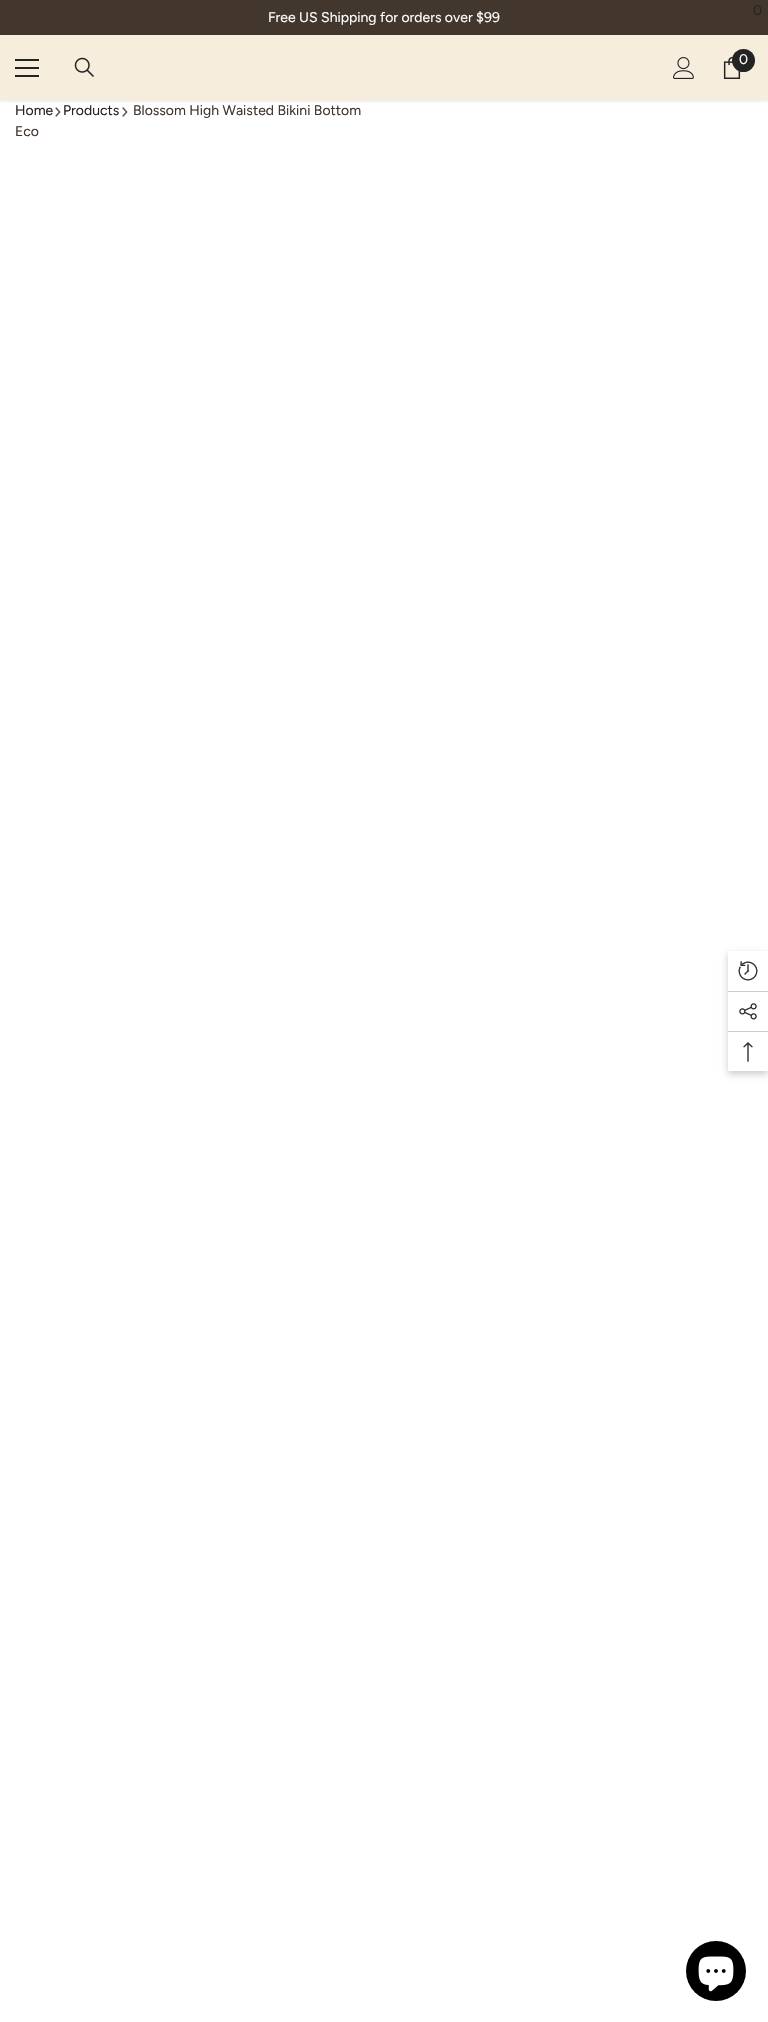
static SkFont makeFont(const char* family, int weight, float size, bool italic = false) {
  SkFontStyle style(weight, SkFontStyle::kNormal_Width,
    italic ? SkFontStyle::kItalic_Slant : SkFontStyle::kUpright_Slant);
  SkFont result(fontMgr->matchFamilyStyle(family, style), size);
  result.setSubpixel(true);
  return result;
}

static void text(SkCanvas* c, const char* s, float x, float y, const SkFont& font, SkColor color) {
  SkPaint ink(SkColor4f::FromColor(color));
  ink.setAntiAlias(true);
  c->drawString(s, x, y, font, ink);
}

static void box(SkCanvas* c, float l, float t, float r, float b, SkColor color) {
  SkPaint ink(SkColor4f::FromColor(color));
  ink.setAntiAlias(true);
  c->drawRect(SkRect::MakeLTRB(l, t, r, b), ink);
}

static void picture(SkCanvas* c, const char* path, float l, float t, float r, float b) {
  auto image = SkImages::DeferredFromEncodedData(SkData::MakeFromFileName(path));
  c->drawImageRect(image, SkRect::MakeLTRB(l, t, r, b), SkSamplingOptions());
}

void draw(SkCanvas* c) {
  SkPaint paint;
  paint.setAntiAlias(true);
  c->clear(0xffffffff);
  box(c, 0, 0, 768, 35, 0xff43362d);
  SkFont face1 = makeFont("Figtree", 400, 14);
  text(c, "Free US Shipping for orders over $99", 268, 22, face1, 0xffffffff);
  text(c, "0", 753, 15, face1, 0xff232323);
  paint.setColor(0x1a000000);
  paint.setMaskFilter(SkMaskFilter::MakeBlur(kNormal_SkBlurStyle, 1.5f));
  c->drawRect(SkRect::MakeLTRB(0, 36, 768, 101), paint);
  paint.setMaskFilter(nullptr);
  box(c, 0, 35, 768, 100, 0xfff7eddd);
  box(c, 15, 67, 39, 69, 0xff232323);
  box(c, 15, 59, 39, 61, 0xff232323);
  box(c, 15, 75, 39, 77, 0xff232323);
  picture(c, "img_01.png", 74, 57, 94, 77);
  picture(c, "img_02.png", 673, 57, 694, 79);
  picture(c, "img_03.png", 723, 57, 741, 79);
  paint.setColor(0xff232323);
  c->drawCircle(743.5f, 60.5f, 11.5f, paint);
  text(c, "0", 739, 64, face1, 0xffffffff);
  text(c, "Home", 15, 115, face1, 0xff232323);
  picture(c, "img_04.png", 55, 107, 61, 117);
  text(c, "Products", 63, 115, face1, 0xff232323);
  picture(c, "img_04.png", 122, 107, 128, 117);
  text(c, "Blossom High Waisted Bikini Bottom", 133, 115, face1, 0xff43362d);
  text(c, "Eco", 15, 136, face1, 0xff43362d);
  c->save();
  c->clipPath(SkPathBuilder(SkPathFillType::kEvenOdd).moveTo(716, 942).lineTo(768, 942).lineTo(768, 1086).lineTo(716, 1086).close().moveTo(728, 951).lineTo(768, 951).lineTo(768, 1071).lineTo(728, 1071).close().detach(), true);
  paint.setColor(0x33000000);
  paint.setMaskFilter(SkMaskFilter::MakeBlur(kNormal_SkBlurStyle, 3.5f));
  c->drawRect(SkRect::MakeLTRB(728, 954, 768, 1074), paint);
  paint.setMaskFilter(nullptr);
  c->restore();
  picture(c, "img_05.png", 738, 961, 758, 981);
  box(c, 728, 991, 768, 992, 0xffcccccc);
  picture(c, "img_06.png", 739, 1003, 757, 1020);
  box(c, 728, 1031, 768, 1032, 0xffcccccc);
  picture(c, "img_07.png", 743, 1042, 753, 1062);
  paint.setColor(0xff000000);
  c->drawCircle(716, 1971, 30, paint);
  picture(c, "img_08.png", 698, 1956, 734, 1992);
}
